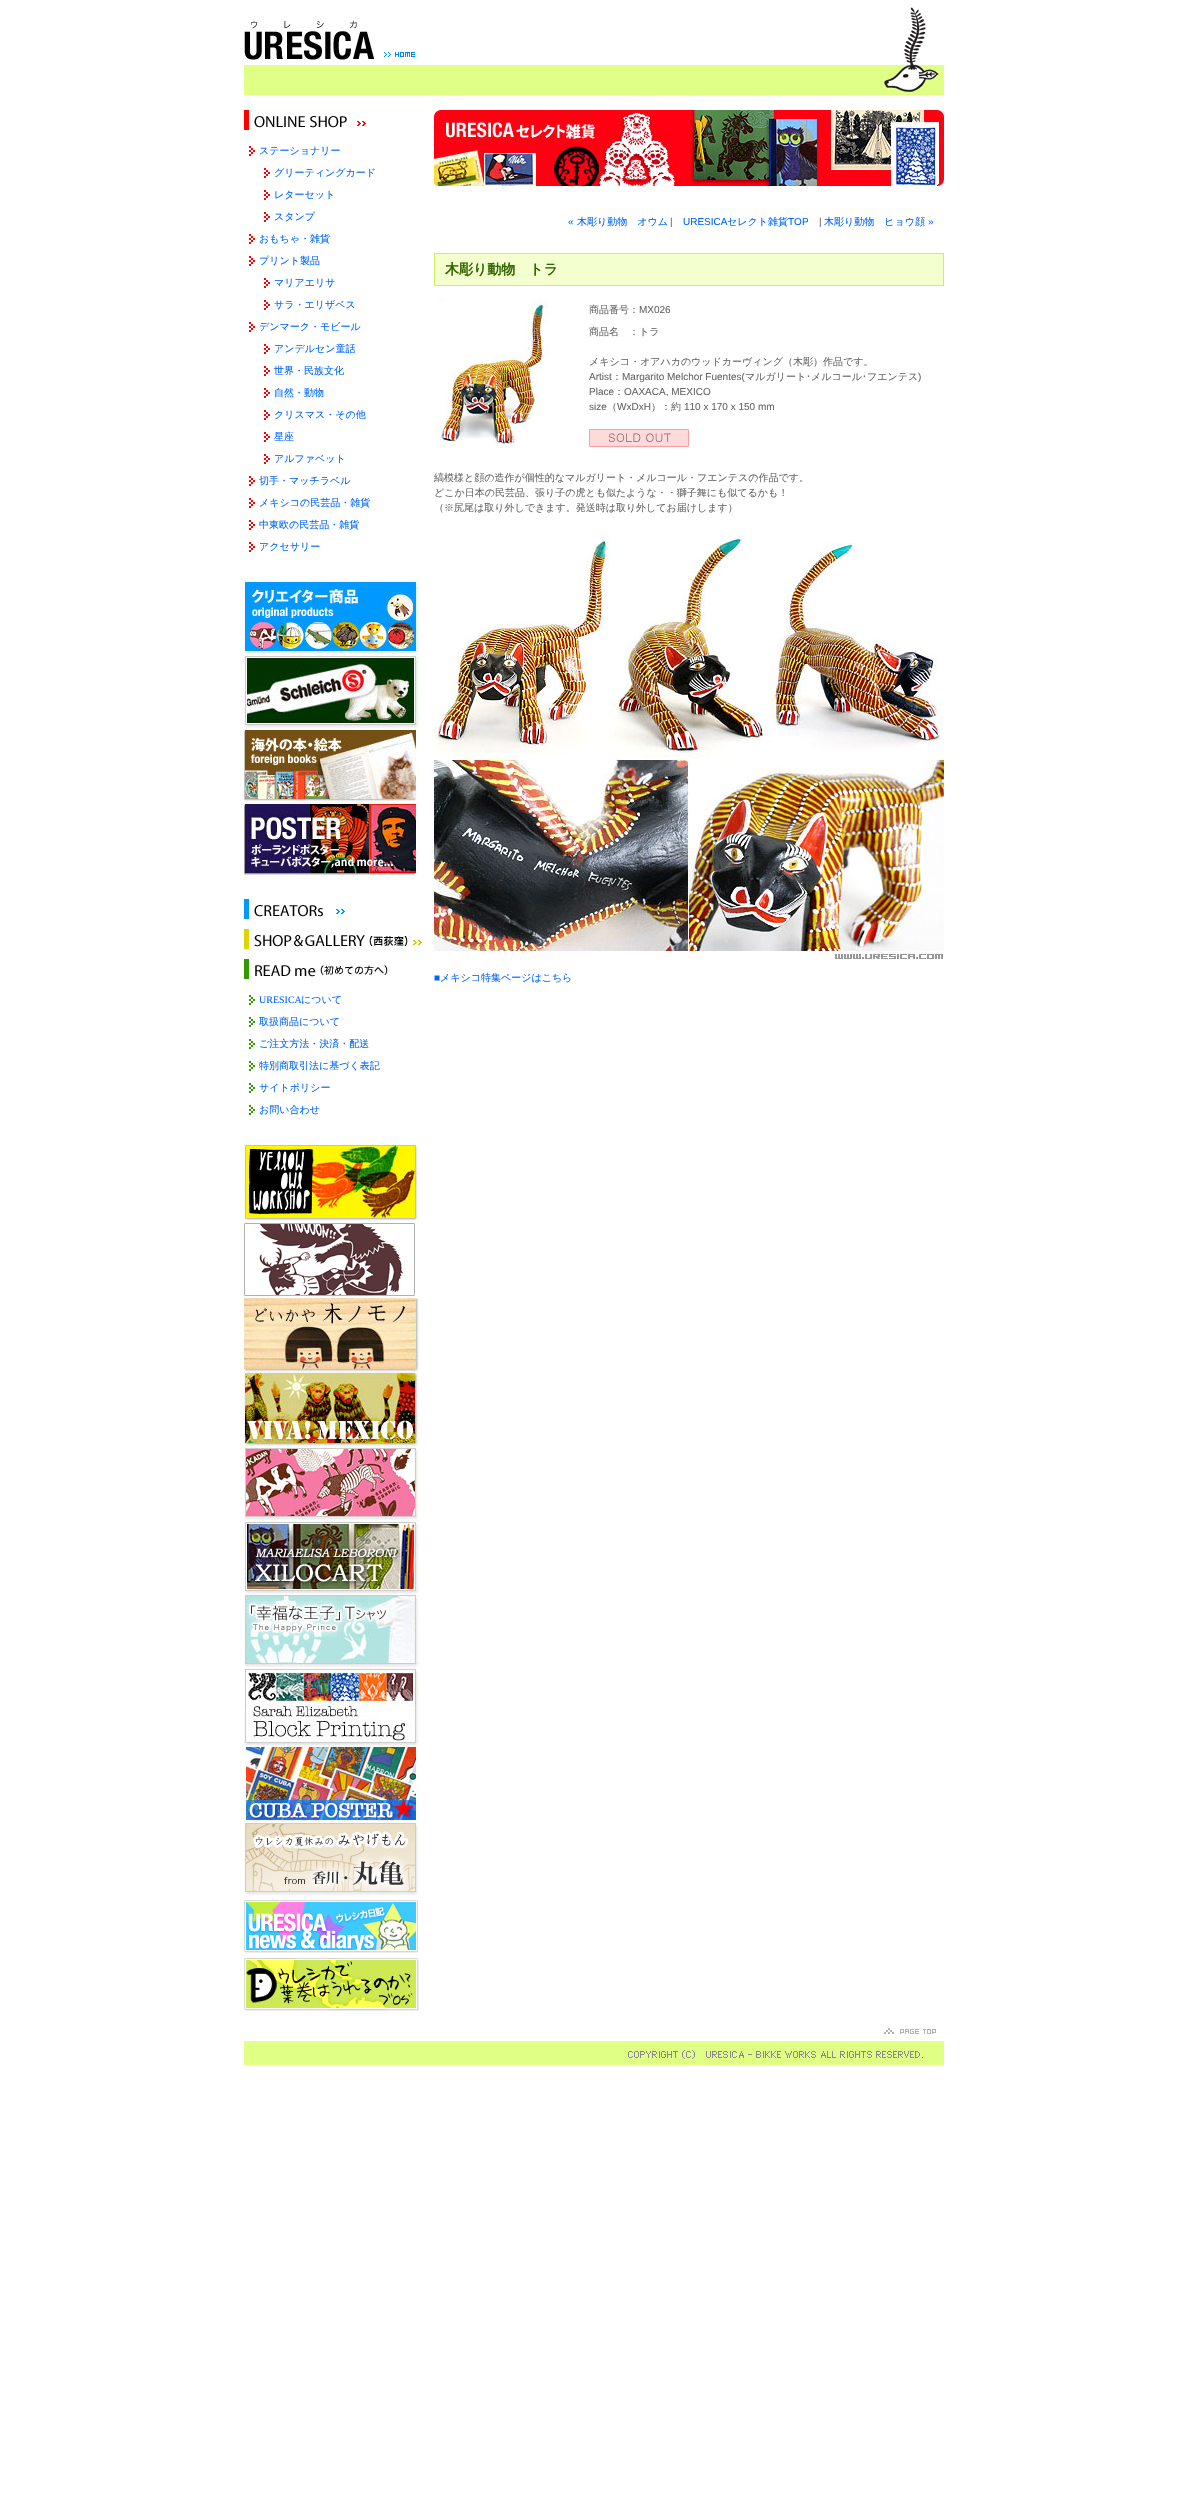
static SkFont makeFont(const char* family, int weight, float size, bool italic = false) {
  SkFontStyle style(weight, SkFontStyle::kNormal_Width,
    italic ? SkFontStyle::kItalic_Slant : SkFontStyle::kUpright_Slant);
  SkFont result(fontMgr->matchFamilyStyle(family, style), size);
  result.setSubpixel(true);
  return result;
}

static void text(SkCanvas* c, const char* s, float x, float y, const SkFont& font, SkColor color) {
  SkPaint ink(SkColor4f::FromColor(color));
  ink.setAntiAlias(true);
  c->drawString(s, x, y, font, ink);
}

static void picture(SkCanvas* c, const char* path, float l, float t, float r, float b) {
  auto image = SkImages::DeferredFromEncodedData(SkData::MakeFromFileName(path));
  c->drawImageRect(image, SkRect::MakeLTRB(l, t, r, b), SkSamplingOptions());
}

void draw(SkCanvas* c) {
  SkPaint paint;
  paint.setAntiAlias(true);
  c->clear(0xffffffff);
  picture(c, "img_01.png", 244, 7, 944, 95);
  picture(c, "img_02.png", 244, 110, 366, 130);
  picture(c, "img_03.png", 249, 146, 255, 156);
  SkFont face1 = makeFont("WenQuanYi Zen Hei", 500, 10);
  text(c, "ステーショナリー", 259, 154, face1, 0xff0066ff);
  picture(c, "img_03.png", 264, 168, 270, 178);
  text(c, "グリーティングカード", 274, 176, face1, 0xff0066ff);
  picture(c, "img_03.png", 264, 190, 270, 200);
  text(c, "レターセット", 274, 198, face1, 0xff0066ff);
  picture(c, "img_03.png", 264, 212, 270, 222);
  text(c, "スタンプ", 274, 220, face1, 0xff0066ff);
  picture(c, "img_03.png", 249, 234, 255, 244);
  text(c, "おもちゃ・雑貨", 259, 242, face1, 0xff0066ff);
  picture(c, "img_03.png", 249, 256, 255, 266);
  text(c, "プリント製品", 259, 264, face1, 0xff0066ff);
  picture(c, "img_03.png", 264, 278, 270, 288);
  text(c, "マリアエリサ", 274, 286, face1, 0xff0066ff);
  picture(c, "img_03.png", 264, 300, 270, 310);
  text(c, "サラ・エリザベス", 274, 308, face1, 0xff0066ff);
  picture(c, "img_03.png", 249, 322, 255, 332);
  text(c, "デンマーク・モビール", 259, 330, face1, 0xff0066ff);
  picture(c, "img_03.png", 264, 344, 270, 354);
  text(c, "アンデルセン童話", 274, 352, face1, 0xff0066ff);
  picture(c, "img_03.png", 264, 366, 270, 376);
  text(c, "世界・民族文化", 274, 374, face1, 0xff0066ff);
  picture(c, "img_03.png", 264, 388, 270, 398);
  text(c, "自然・動物", 274, 396, face1, 0xff0066ff);
  picture(c, "img_03.png", 264, 410, 270, 420);
  text(c, "クリスマス・その他", 274, 418, face1, 0xff0066ff);
  picture(c, "img_03.png", 264, 432, 270, 442);
  text(c, "星座", 274, 440, face1, 0xff0066ff);
  picture(c, "img_03.png", 264, 454, 270, 464);
  text(c, "アルファベット", 274, 462, face1, 0xff0066ff);
  picture(c, "img_03.png", 249, 476, 255, 486);
  text(c, "切手・マッチラベル", 259, 484, face1, 0xff0066ff);
  picture(c, "img_03.png", 249, 498, 255, 508);
  text(c, "メキシコの民芸品・雑貨", 259, 506, face1, 0xff0066ff);
  picture(c, "img_03.png", 249, 520, 255, 530);
  text(c, "中東欧の民芸品・雑貨", 259, 528, face1, 0xff0066ff);
  picture(c, "img_03.png", 249, 542, 255, 552);
  text(c, "アクセサリー", 259, 550, face1, 0xff0066ff);
  picture(c, "img_04.png", 244, 580, 419, 654);
  picture(c, "img_05.png", 244, 654, 419, 728);
  picture(c, "img_06.png", 244, 728, 419, 801);
  picture(c, "img_07.png", 244, 802, 419, 875);
  picture(c, "img_08.png", 244, 899, 345, 919);
  picture(c, "img_09.png", 244, 929, 422, 949);
  picture(c, "img_10.png", 244, 959, 388, 979);
  picture(c, "img_11.png", 249, 995, 255, 1005);
  SkFont face2 = makeFont("Liberation Serif", 400, 10);
  text(c, "URESICA", 259, 1003, face2, 0xff0066ff);
  text(c, "について", 301, 1003, face1, 0xff0066ff);
  picture(c, "img_11.png", 249, 1017, 255, 1027);
  text(c, "取扱商品について", 259, 1025, face1, 0xff0066ff);
  picture(c, "img_11.png", 249, 1039, 255, 1049);
  text(c, "ご注文方法・決済・配送", 259, 1047, face1, 0xff0066ff);
  picture(c, "img_11.png", 249, 1061, 255, 1071);
  text(c, "特別商取引法に基づく表記", 259, 1069, face1, 0xff0066ff);
  picture(c, "img_11.png", 249, 1083, 255, 1093);
  text(c, "サイトポリシー", 259, 1091, face1, 0xff0066ff);
  picture(c, "img_11.png", 249, 1105, 255, 1115);
  text(c, "お問い合わせ", 259, 1113, face1, 0xff0066ff);
  picture(c, "img_12.png", 244, 1143, 419, 1223);
  picture(c, "img_13.png", 244, 1223, 415, 1296);
  picture(c, "img_14.png", 244, 1298, 419, 1372);
  picture(c, "img_15.png", 244, 1372, 419, 1446);
  picture(c, "img_16.png", 244, 1446, 419, 1520);
  picture(c, "img_17.png", 244, 1520, 419, 1594);
  picture(c, "img_18.png", 244, 1594, 419, 1667);
  picture(c, "img_19.png", 244, 1667, 419, 1747);
  picture(c, "img_20.png", 244, 1747, 419, 1822);
  picture(c, "img_21.png", 244, 1823, 419, 1895);
  picture(c, "img_22.png", 244, 1900, 418, 1953);
  picture(c, "img_23.png", 244, 1958, 419, 2011);
  picture(c, "img_24.png", 434, 110, 944, 186);
  SkFont face3 = makeFont("Liberation Sans", 400, 10);
  text(c, "«", 568, 225, face3, 0xff0066ff);
  text(c, "木彫り動物　オウム", 577, 225, face1, 0xff0066ff);
  text(c, "|", 670, 225, face3, 0xff666666);
  text(c, "URESICA", 683, 225, face3, 0xff0066ff);
  text(c, "セレクト雑貨", 727, 225, face1, 0xff0066ff);
  text(c, "TOP", 788, 225, face3, 0xff0066ff);
  text(c, "|", 819, 225, face3, 0xff666666);
  text(c, "木彫り動物　ヒョウ顔", 824, 225, face1, 0xff0066ff);
  text(c, "»", 928, 225, face3, 0xff0066ff);
  paint.setColor(0xfff3ffcf);
  c->drawRect(SkRect::MakeLTRB(434.5f, 253.5f, 943.5f, 285.5f), paint);
  paint.setStyle(SkPaint::kStroke_Style);
  paint.setStrokeWidth(1);
  paint.setColor(0xffccee68);
  c->drawRect(SkRect::MakeLTRB(434.5f, 253.5f, 943.5f, 285.5f), paint);
  SkFont face4 = makeFont("WenQuanYi Zen Hei", 700, 14);
  text(c, "木彫り動物　トラ", 445, 274, face4, 0xff336600);
  picture(c, "img_25.png", 437, 299, 548, 445);
  text(c, "商品番号：", 589, 313, face1, 0xff666666);
  text(c, "MX026", 639, 313, face3, 0xff666666);
  text(c, "商品名　：トラ", 589, 335, face1, 0xff666666);
  text(c, "メキシコ・オアハカのウッドカーヴィング（木彫）作品です。", 589, 365, face1, 0xff666666);
  text(c, "Artist", 589, 380, face3, 0xff666666);
  text(c, "：", 612, 380, face1, 0xff666666);
  text(c, "Margarito Melchor Fuentes(", 622, 380, face3, 0xff666666);
  text(c, "マルガリート", 745, 380, face1, 0xff666666);
  SkFont face5 = makeFont("IPAGothic", 400, 10);
  text(c, "･", 806, 380, face5, 0xff666666);
  text(c, "メルコール", 811, 380, face1, 0xff666666);
  text(c, "･", 862, 380, face5, 0xff666666);
  text(c, "フエンテス", 867, 380, face1, 0xff666666);
  text(c, ")", 918, 380, face3, 0xff666666);
  text(c, "Place", 589, 395, face3, 0xff666666);
  text(c, "：", 614, 395, face1, 0xff666666);
  text(c, "OAXACA, MEXICO", 624, 395, face3, 0xff666666);
  text(c, "size", 589, 410, face3, 0xff666666);
  text(c, "（", 607, 410, face1, 0xff666666);
  text(c, "WxDxH", 617, 410, face3, 0xff666666);
  text(c, "）：約", 651, 410, face1, 0xff666666);
  text(c, "110 x 170 x 150 mm", 684, 410, face3, 0xff666666);
  picture(c, "img_26.png", 589, 429, 689, 447);
  c->save();
  c->clipRect(SkRect::MakeLTRB(434, 110, 944, 995));
  text(c, "縞模様と顔の造作が個性的なマルガリート・メルコール・フエンテスの作品です。", 434, 481, face1, 0xff666666);
  c->restore();
  text(c, "どこか日本の民芸品、張り子の虎とも似たような・・獅子舞にも似てるかも！", 434, 496, face1, 0xff666666);
  text(c, "（※尻尾は取り外しできます。発送時は取り外してお届けします）", 434, 511, face1, 0xff666666);
  picture(c, "img_27.png", 434, 535, 944, 959);
  text(c, "■", 434, 981, face3, 0xff0066ff);
  text(c, "メキシコ特集ページはこちら", 440, 981, face1, 0xff0066ff);
  picture(c, "img_28.png", 884, 2028, 936, 2034);
  picture(c, "img_29.png", 244, 2041, 944, 2065);
}
